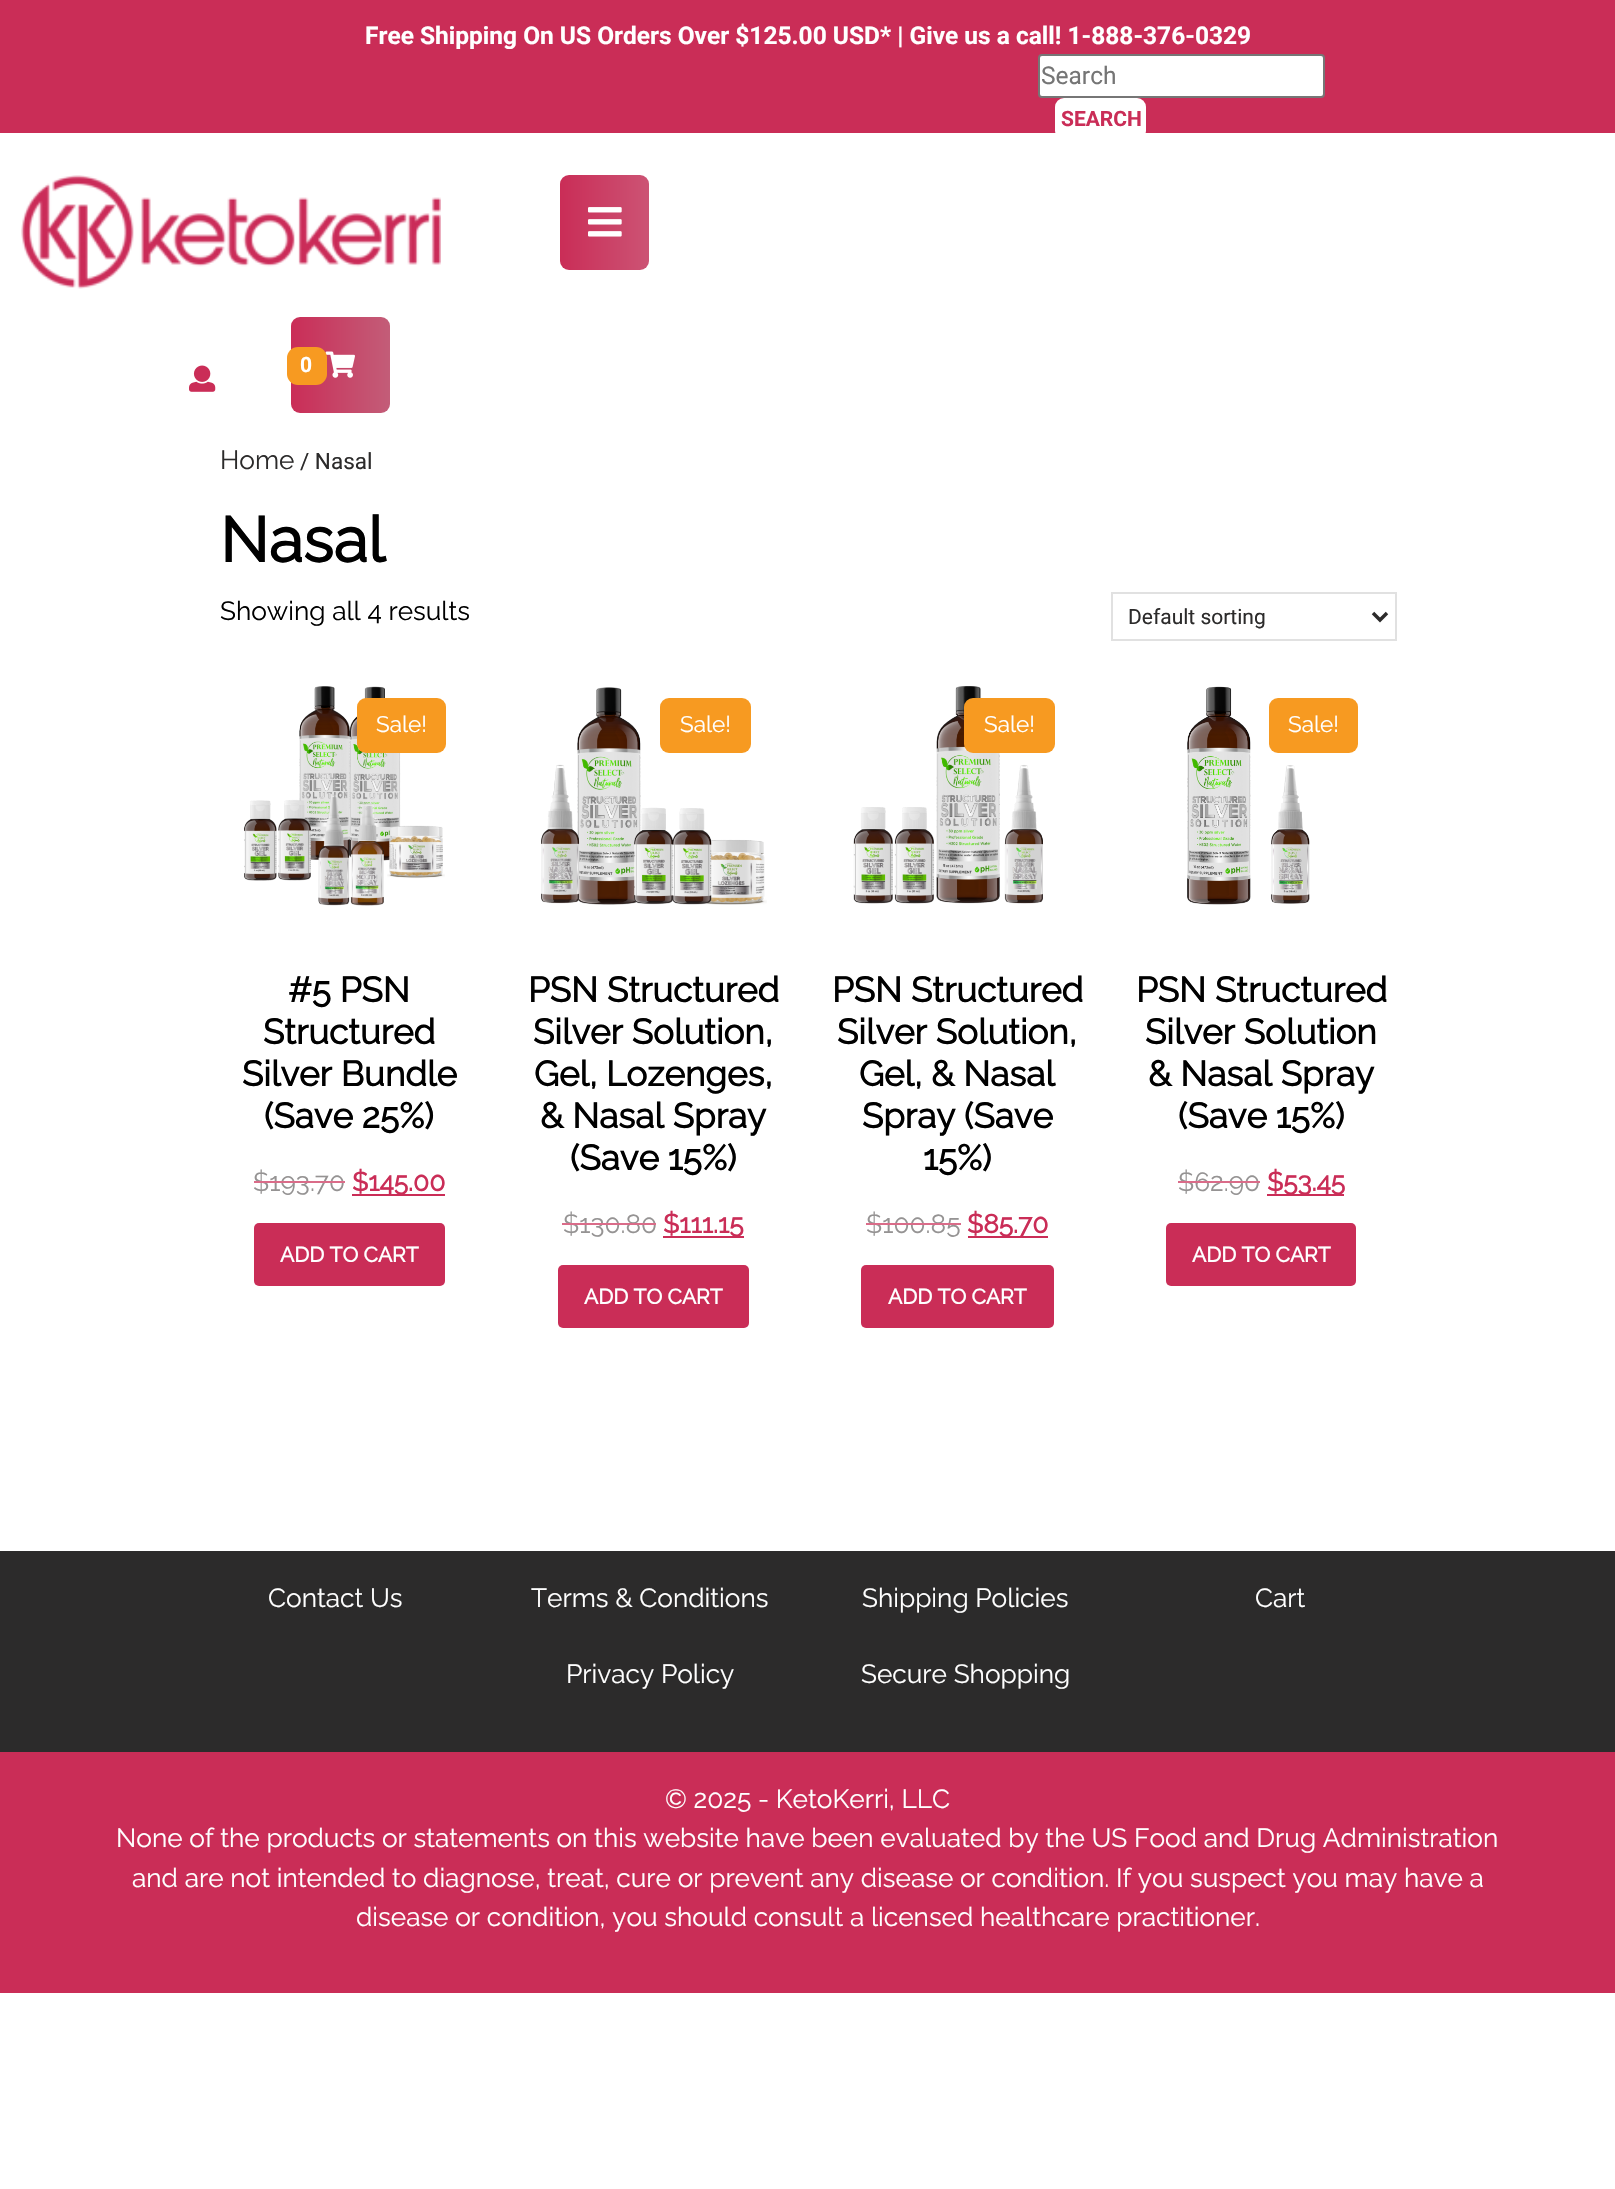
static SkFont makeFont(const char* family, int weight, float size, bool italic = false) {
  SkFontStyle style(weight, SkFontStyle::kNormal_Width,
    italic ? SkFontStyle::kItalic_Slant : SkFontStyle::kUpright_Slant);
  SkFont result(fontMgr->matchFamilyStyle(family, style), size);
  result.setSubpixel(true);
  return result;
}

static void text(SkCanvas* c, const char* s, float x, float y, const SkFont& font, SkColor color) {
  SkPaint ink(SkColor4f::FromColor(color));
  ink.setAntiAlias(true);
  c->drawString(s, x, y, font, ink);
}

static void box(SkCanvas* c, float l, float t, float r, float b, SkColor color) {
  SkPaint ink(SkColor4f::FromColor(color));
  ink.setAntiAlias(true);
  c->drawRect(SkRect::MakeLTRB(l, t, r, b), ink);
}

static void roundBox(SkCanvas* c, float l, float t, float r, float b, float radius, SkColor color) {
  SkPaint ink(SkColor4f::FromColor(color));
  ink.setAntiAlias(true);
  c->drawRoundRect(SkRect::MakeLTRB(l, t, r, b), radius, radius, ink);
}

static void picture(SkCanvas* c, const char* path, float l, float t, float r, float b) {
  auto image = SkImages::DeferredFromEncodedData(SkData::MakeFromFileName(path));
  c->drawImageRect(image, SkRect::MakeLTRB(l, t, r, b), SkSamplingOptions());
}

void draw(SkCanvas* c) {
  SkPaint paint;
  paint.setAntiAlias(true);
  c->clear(0xffffffff);
  box(c, 0, 0, 1615, 133, 0xffca2d57);
  SkFont face1 = makeFont("Roboto", 700, 24.5f);
  text(c, "Free Shipping On US Orders Over $125.00 USD* | Give us a call! 1-888-376-0329", 365, 44, face1, 0xffffffff);
  paint.setColor(0xffffffff);
  c->drawRoundRect(SkRect::MakeLTRB(1039, 55, 1324, 97), 3, 3, paint);
  paint.setStyle(SkPaint::kStroke_Style);
  paint.setStrokeWidth(2);
  paint.setColor(0xff767676);
  c->drawRoundRect(SkRect::MakeLTRB(1039, 55, 1324, 97), 3, 3, paint);
  SkFont face2 = makeFont("Roboto", 400, 24.5f);
  text(c, "Search", 1041, 84, face2, 0xff757575);
  roundBox(c, 1055, 98, 1146, 140, 9, 0xffffffff);
  SkFont face3 = makeFont("Roboto", 700, 21);
  text(c, "SEARCH", 1061, 126, face3, 0xffca2d57);
  picture(c, "img_01.png", 21, 175, 441, 289);
  paint.setStyle(SkPaint::kFill_Style);
  {
    const SkColor colors[] = {0xffca2d57, 0xffcc5374};
    const float stops[] = {0, 1};
    const SkPoint ends[] = {{560, 222}, {649, 222}};
    paint.setShader(SkGradientShader::MakeLinear(ends, colors, stops, 2, SkTileMode::kClamp));
    paint.setAlpha(255);
  }
  c->drawRoundRect(SkRect::MakeLTRB(560, 175, 649, 270), 9, 9, paint);
  picture(c, "img_02.png", 588, 207, 622, 237);
  picture(c, "img_03.png", 189, 365, 216, 392);
  {
    const SkColor colors[] = {0xffca2d57, 0xffc35d78};
    const float stops[] = {0, 1};
    const SkPoint ends[] = {{291, 365}, {390, 365}};
    paint.setShader(SkGradientShader::MakeLinear(ends, colors, stops, 2, SkTileMode::kClamp));
    paint.setAlpha(255);
  }
  c->drawRoundRect(SkRect::MakeLTRB(291, 317, 390, 413), 9, 9, paint);
  picture(c, "img_04.png", 325, 351, 355, 378);
  roundBox(c, 287, 347, 327, 385, 11, 0xfff79a21);
  text(c, "0", 300, 372, face3, 0xffffffff);
  SkFont face4 = makeFont("Raleway", 100, 26.25f);
  text(c, "Home", 220, 469, face4, 0xff2c2b2b);
  SkFont face5 = makeFont("Roboto", 400, 22.5f);
  text(c, "/ Nasal", 300, 469, face5, 0xff2c2b2b);
  SkFont face6 = makeFont("Raleway", 700, 63);
  text(c, "Nasal", 220, 562, face6, 0xff000000);
  text(c, "Showing all 4 results", 220, 620, face4, 0xff000000);
  paint.setStyle(SkPaint::kStroke_Style);
  paint.setShader(nullptr);
  paint.setColor(0xffe1e1e1);
  c->drawRect(SkRect::MakeLTRB(1112, 593, 1396, 640), paint);
  paint.setStrokeWidth(3.5f);
  paint.setColor(0xff2c2b2b);
  c->drawPath(SkPathBuilder().moveTo(1373, 613).lineTo(1380, 620).lineTo(1387, 613).detach(), paint);
  SkFont face7 = makeFont("Roboto", 400, 21);
  text(c, "Default sorting", 1128, 624, face7, 0xff2c2b2b);
  picture(c, "img_05.png", 244, 686, 445, 906);
  roundBox(c, 357, 698, 446, 753, 9, 0xfff79a21);
  SkFont face8 = makeFont("Raleway", 100, 22.5f);
  text(c, "Sale!", 376, 732, face8, 0xffffffff);
  SkFont face9 = makeFont("Raleway", 700, 35);
  text(c, "#5 PSN", 288, 1002, face9, 0xff000000);
  text(c, "Structured", 263, 1044, face9, 0xff000000);
  text(c, "Silver Bundle", 242, 1086, face9, 0xff000000);
  text(c, "(Save 25%)", 264, 1128, face9, 0xff000000);
  text(c, "$193.70", 253, 1191, face4, 0xff959393);
  box(c, 254, 1181, 345, 1183, 0xffda6c89);
  box(c, 352, 1194, 445, 1196, 0xffca2d57);
  SkFont face10 = makeFont("Raleway", 700, 26.25f);
  text(c, "$145.00", 352, 1191, face10, 0xffca2d57);
  roundBox(c, 254, 1223, 445, 1286, 5, 0xffca2d57);
  SkFont face11 = makeFont("Raleway", 700, 21);
  text(c, "ADD TO CART", 280, 1262, face11, 0xffffffff);
  picture(c, "img_06.png", 541, 687, 767, 905);
  roundBox(c, 660, 698, 751, 753, 9, 0xfff79a21);
  text(c, "Sale!", 680, 732, face8, 0xffffffff);
  text(c, "PSN Structured", 528, 1002, face9, 0xff000000);
  text(c, "Silver Solution,", 533, 1044, face9, 0xff000000);
  text(c, "Gel, Lozenges,", 534, 1086, face9, 0xff000000);
  text(c, "& Nasal Spray", 540, 1128, face9, 0xff000000);
  text(c, "(Save 15%)", 570, 1170, face9, 0xff000000);
  text(c, "$130.80", 563, 1233, face4, 0xff959393);
  box(c, 562, 1223, 656, 1225, 0xffda6c89);
  box(c, 663, 1236, 744, 1238, 0xffca2d57);
  text(c, "$111.15", 663, 1233, face10, 0xffca2d57);
  roundBox(c, 558, 1265, 749, 1328, 5, 0xffca2d57);
  text(c, "ADD TO CART", 584, 1304, face11, 0xffffffff);
  picture(c, "img_07.png", 853, 686, 1043, 904);
  roundBox(c, 964, 698, 1055, 753, 9, 0xfff79a21);
  text(c, "Sale!", 984, 732, face8, 0xffffffff);
  text(c, "PSN Structured", 832, 1002, face9, 0xff000000);
  text(c, "Silver Solution,", 837, 1044, face9, 0xff000000);
  text(c, "Gel, & Nasal", 859, 1086, face9, 0xff000000);
  text(c, "Spray (Save", 862, 1128, face9, 0xff000000);
  text(c, "15%)", 923, 1170, face9, 0xff000000);
  text(c, "$100.85", 866, 1233, face4, 0xff959393);
  box(c, 866, 1223, 961, 1225, 0xffda6c89);
  box(c, 968, 1236, 1048, 1238, 0xffca2d57);
  text(c, "$85.70", 967, 1233, face10, 0xffca2d57);
  roundBox(c, 861, 1265, 1054, 1328, 5, 0xffca2d57);
  text(c, "ADD TO CART", 888, 1304, face11, 0xffffffff);
  picture(c, "img_08.png", 1187, 686, 1310, 905);
  roundBox(c, 1269, 698, 1358, 753, 9, 0xfff79a21);
  text(c, "Sale!", 1288, 732, face8, 0xffffffff);
  text(c, "PSN Structured", 1136, 1002, face9, 0xff000000);
  text(c, "Silver Solution", 1145, 1044, face9, 0xff000000);
  text(c, "& Nasal Spray", 1148, 1086, face9, 0xff000000);
  text(c, "(Save 15%)", 1178, 1128, face9, 0xff000000);
  text(c, "$62.90", 1178, 1191, face4, 0xff959393);
  box(c, 1178, 1181, 1260, 1183, 0xffda6c89);
  box(c, 1267, 1194, 1344, 1196, 0xffca2d57);
  text(c, "$53.45", 1267, 1191, face10, 0xffca2d57);
  roundBox(c, 1166, 1223, 1356, 1286, 5, 0xffca2d57);
  text(c, "ADD TO CART", 1192, 1262, face11, 0xffffffff);
  box(c, 0, 1551, 1615, 1752, 0xff2c2b2b);
  text(c, "Contact Us", 268, 1607, face4, 0xffffffff);
  text(c, "Terms & Conditions", 531, 1607, face4, 0xffffffff);
  text(c, "Privacy Policy", 566, 1683, face4, 0xffffffff);
  text(c, "Shipping Policies", 862, 1607, face4, 0xffffffff);
  text(c, "Secure Shopping", 861, 1683, face4, 0xffffffff);
  text(c, "Cart", 1255, 1607, face4, 0xffffffff);
  box(c, 0, 1752, 1615, 1993, 0xffca2d57);
  text(c, "© 2025 - KetoKerri, LLC", 665, 1808, face4, 0xffffffff);
  text(c, "None of the products or statements on this website have been evaluated by the US Food and Drug Administration", 116, 1847, face4, 0xffffffff);
  text(c, "and are not intended to diagnose, treat, cure or prevent any disease or condition. If you suspect you may have a", 132, 1887, face4, 0xffffffff);
  text(c, "disease or condition, you should consult a licensed healthcare practitioner.", 356, 1926, face4, 0xffffffff);
}
